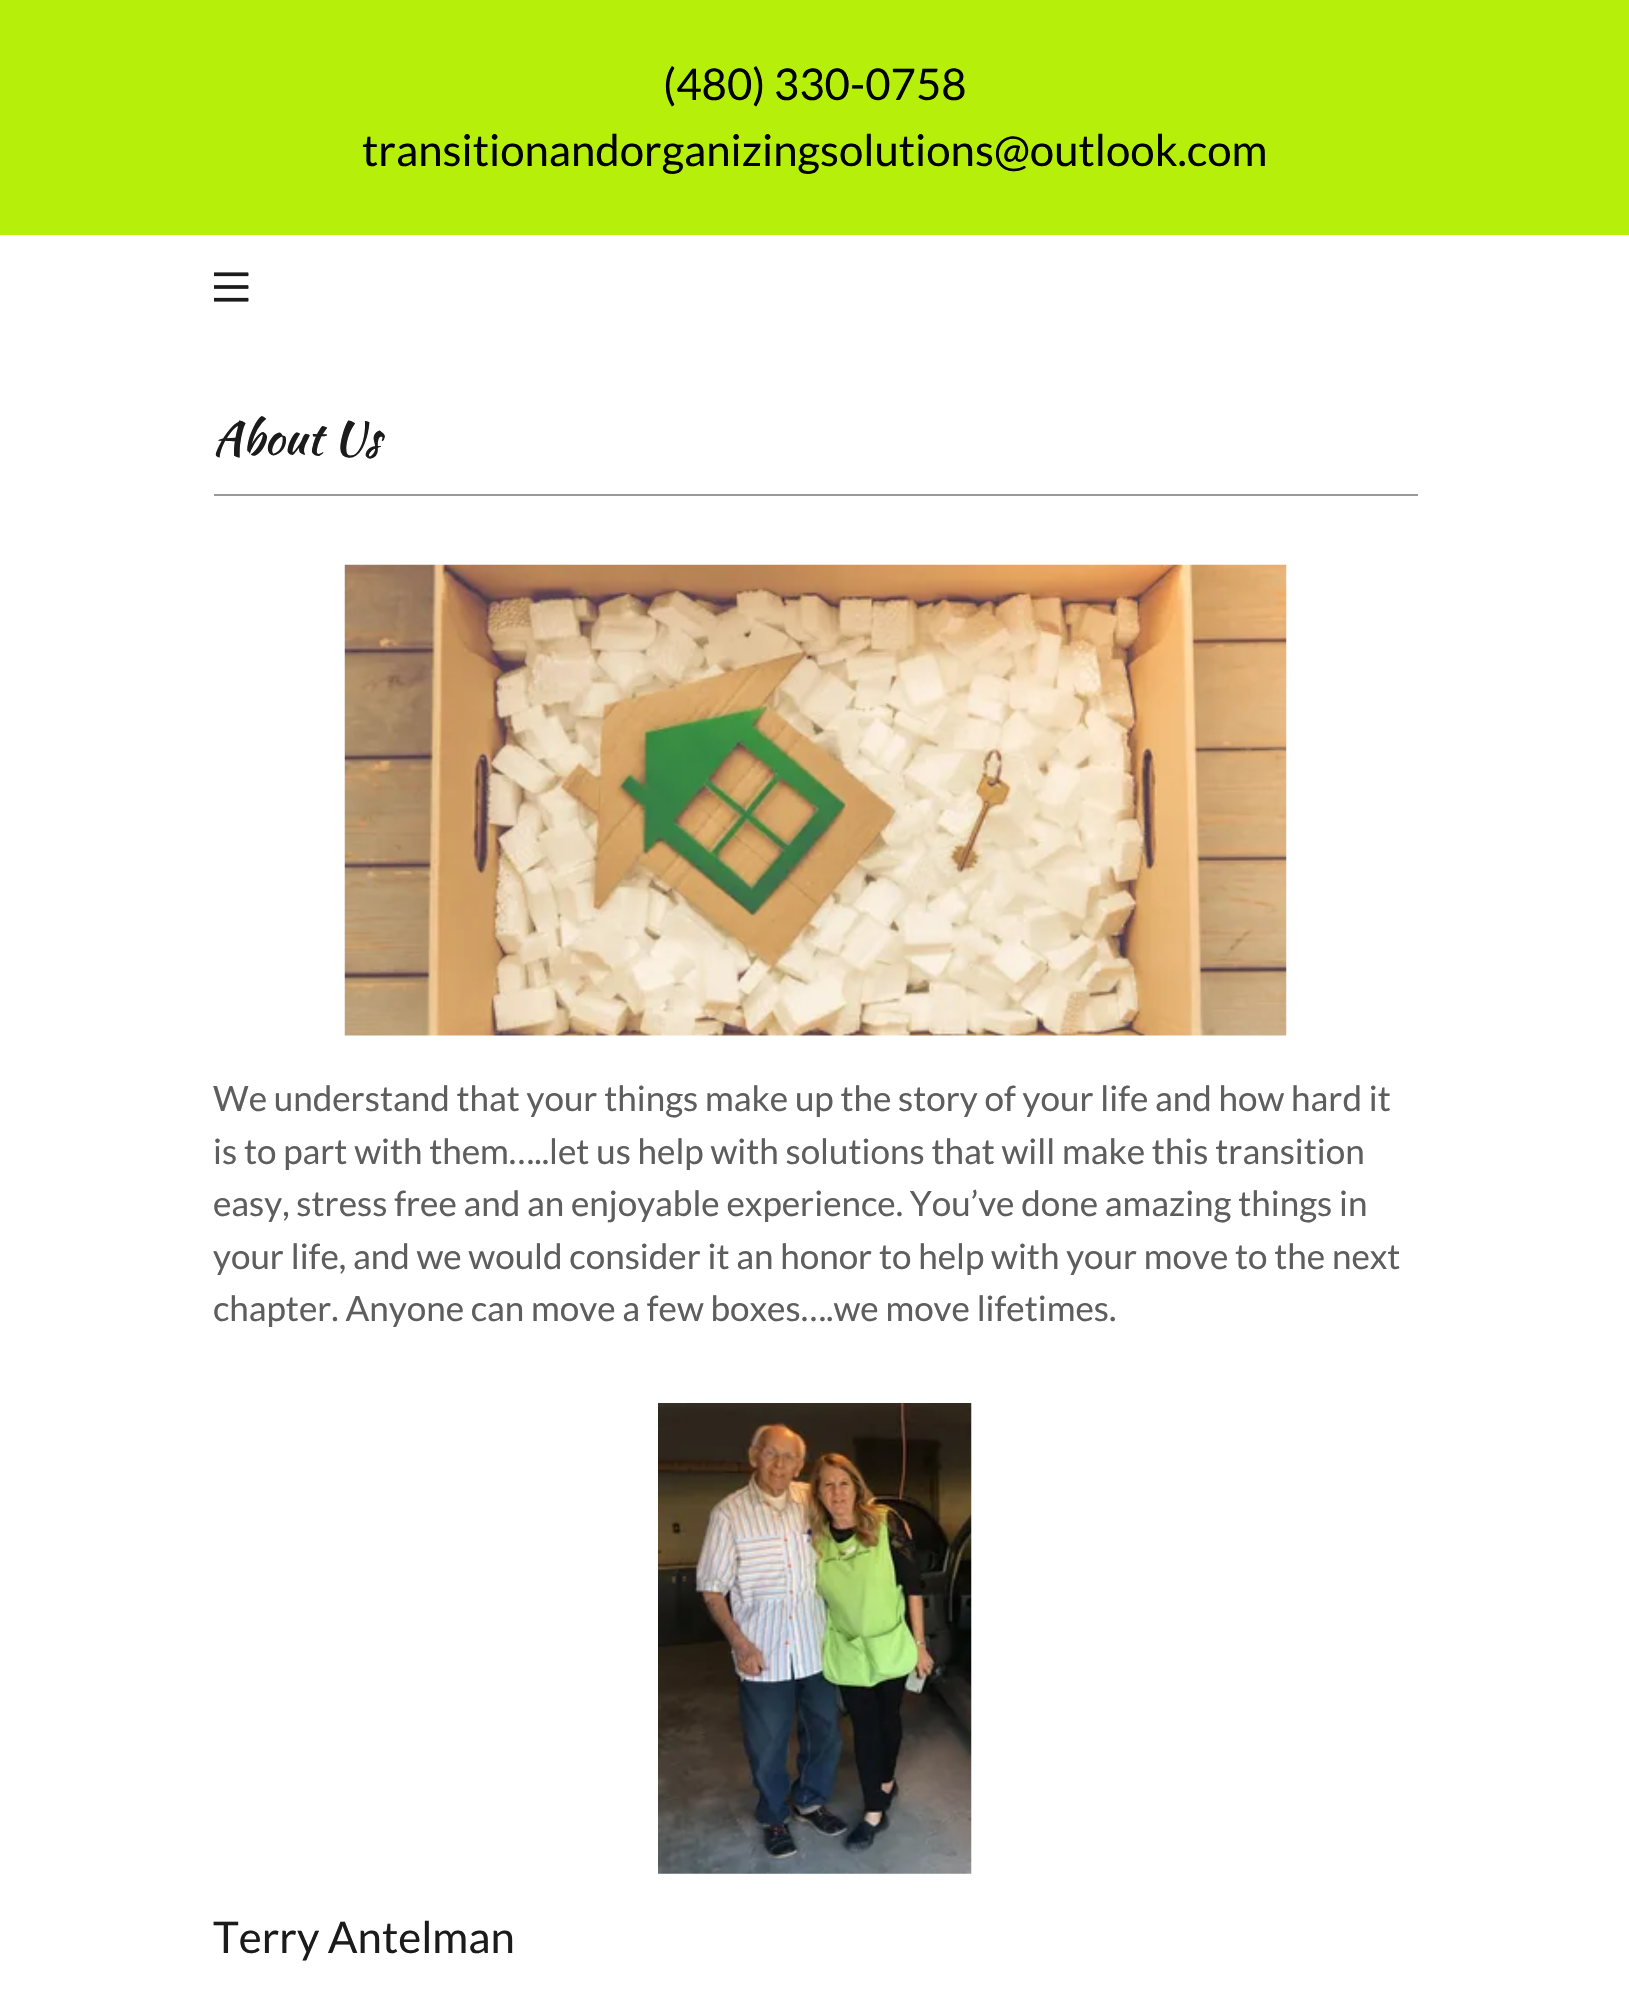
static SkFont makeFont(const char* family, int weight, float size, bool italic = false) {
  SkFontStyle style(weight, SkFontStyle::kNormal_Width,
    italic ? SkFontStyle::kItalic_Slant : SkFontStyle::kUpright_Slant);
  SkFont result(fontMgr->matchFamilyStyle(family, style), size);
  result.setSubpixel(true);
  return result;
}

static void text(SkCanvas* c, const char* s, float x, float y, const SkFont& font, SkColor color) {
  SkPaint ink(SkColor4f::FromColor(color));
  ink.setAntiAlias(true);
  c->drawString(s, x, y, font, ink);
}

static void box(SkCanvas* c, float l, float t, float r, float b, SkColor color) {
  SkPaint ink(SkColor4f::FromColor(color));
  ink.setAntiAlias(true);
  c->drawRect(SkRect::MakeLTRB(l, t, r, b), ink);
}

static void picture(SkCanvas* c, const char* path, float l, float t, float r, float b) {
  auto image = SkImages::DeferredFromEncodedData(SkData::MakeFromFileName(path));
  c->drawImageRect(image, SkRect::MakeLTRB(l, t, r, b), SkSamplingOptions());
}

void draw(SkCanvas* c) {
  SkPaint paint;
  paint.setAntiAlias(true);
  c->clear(0xffffffff);
  box(c, 0, 0, 1629, 235, 0xffb6ef09);
  SkFont face1 = makeFont("Lato", 400, 43.75f);
  text(c, "(480) 330-0758", 663, 100, face1, 0xff000000);
  text(c, "transitionandorganizingsolutions@outlook.com", 362, 166, face1, 0xff000000);
  picture(c, "img_01.png", 214, 272, 249, 302);
  SkFont face2 = makeFont("Kaushan Script", 400, 45.5f);
  text(c, "About Us", 213, 454, face2, 0xff1b1b1b);
  box(c, 214, 494, 1418, 496, 0xff999999);
  picture(c, "img_02.png", 344, 564, 1287, 1036);
  SkFont face3 = makeFont("Lato", 400, 35);
  text(c, "We understand that your things make up the story of your life and how hard it", 213, 1111, face3, 0xff5e5e5e);
  text(c, "is to part with them…..let us help with solutions that will make this transition", 213, 1164, face3, 0xff5e5e5e);
  text(c, "easy, stress free and an enjoyable experience. You’ve done amazing things in", 213, 1216, face3, 0xff5e5e5e);
  text(c, "your life, and we would consider it an honor to help with your move to the next", 213, 1269, face3, 0xff5e5e5e);
  text(c, "chapter. Anyone can move a few boxes….we move lifetimes.", 213, 1321, face3, 0xff5e5e5e);
  picture(c, "img_03.png", 658, 1403, 972, 1874);
  text(c, "Terry Antelman", 213, 1953, face1, 0xff1b1b1b);
}
